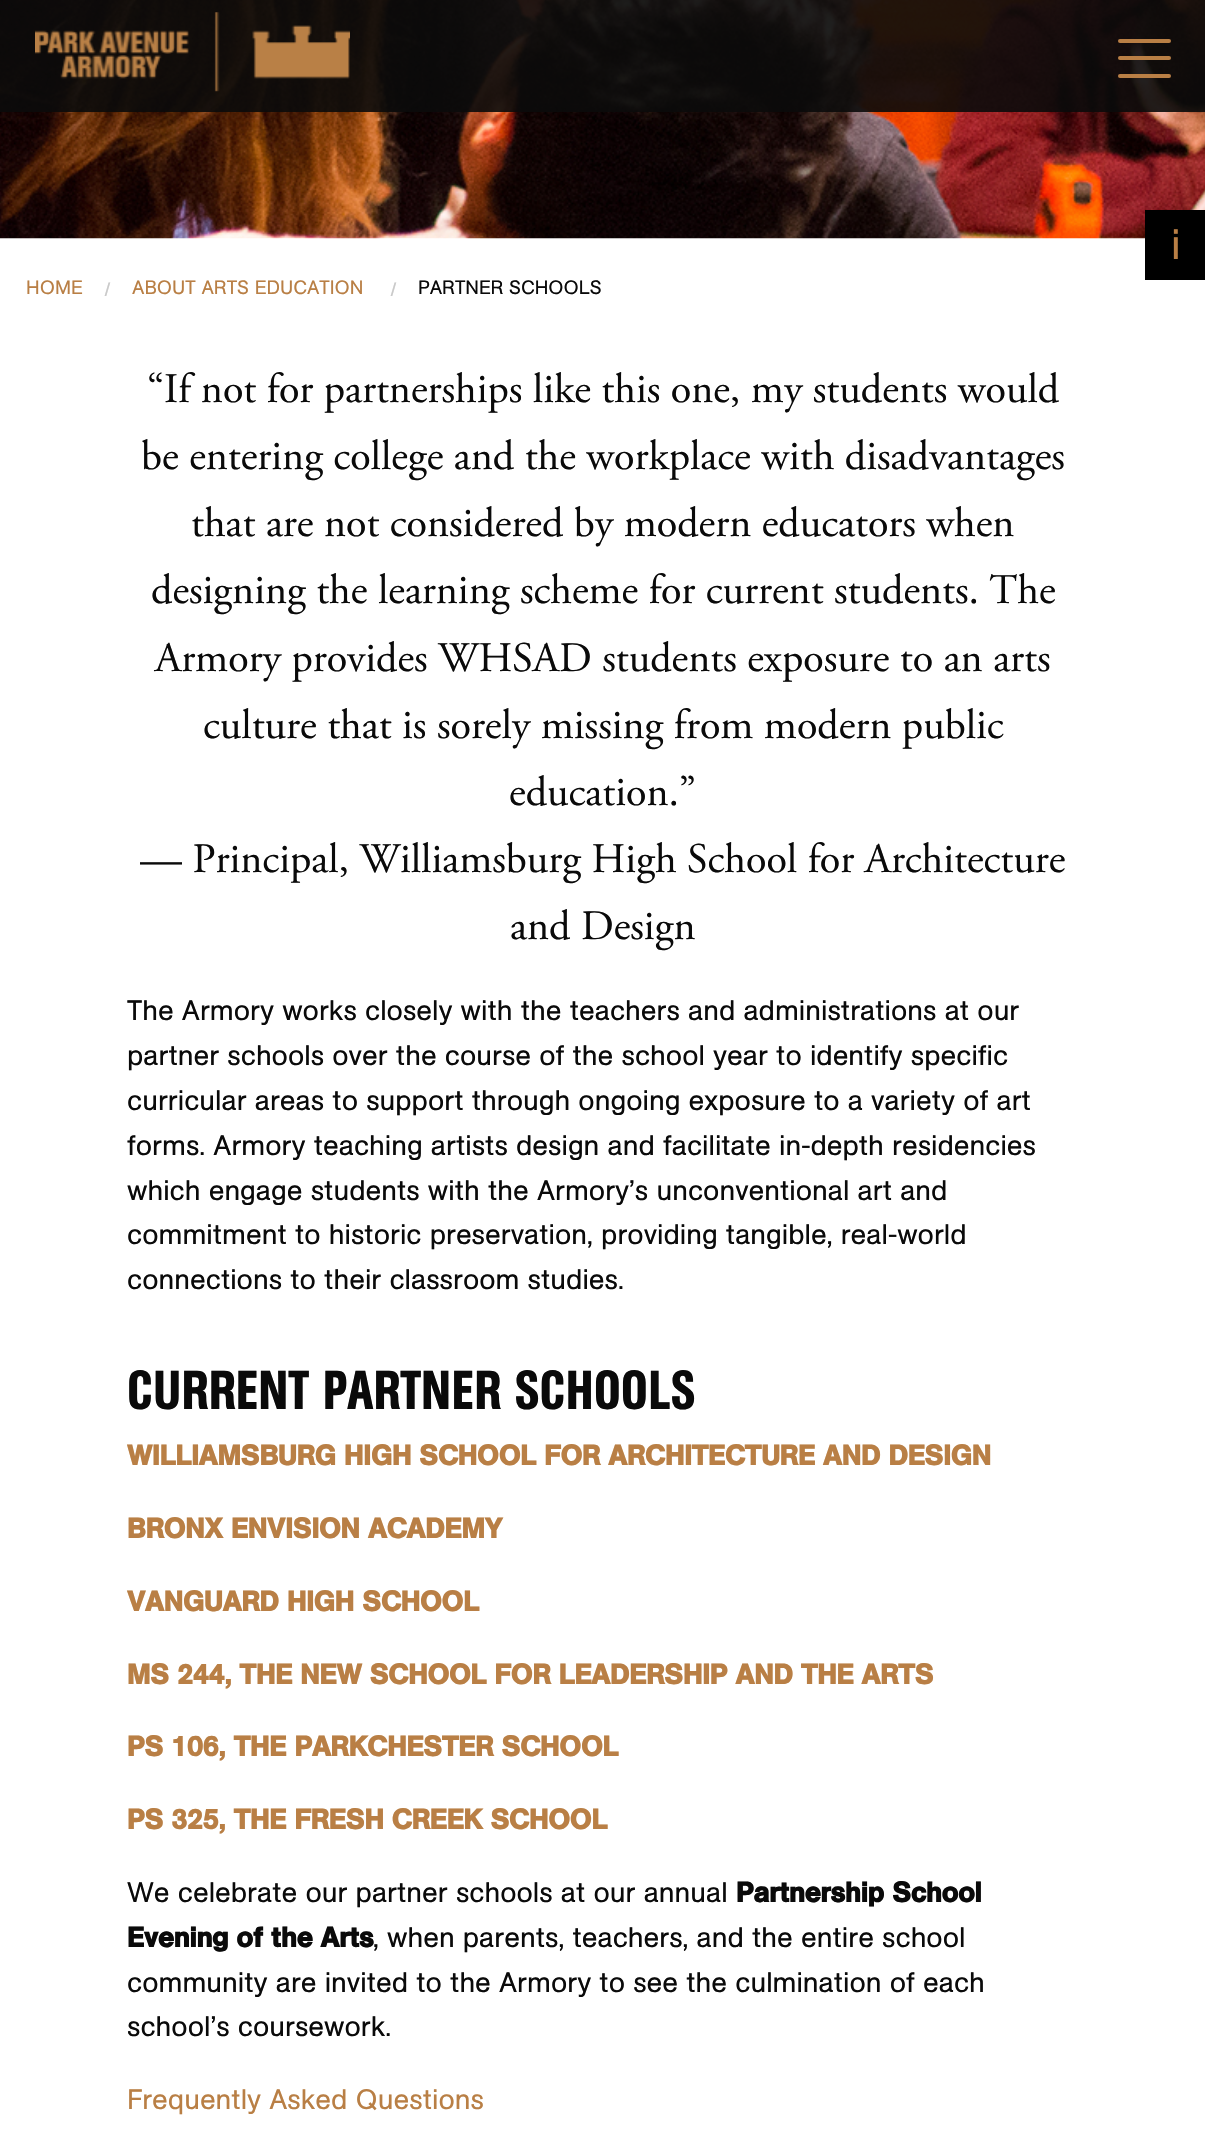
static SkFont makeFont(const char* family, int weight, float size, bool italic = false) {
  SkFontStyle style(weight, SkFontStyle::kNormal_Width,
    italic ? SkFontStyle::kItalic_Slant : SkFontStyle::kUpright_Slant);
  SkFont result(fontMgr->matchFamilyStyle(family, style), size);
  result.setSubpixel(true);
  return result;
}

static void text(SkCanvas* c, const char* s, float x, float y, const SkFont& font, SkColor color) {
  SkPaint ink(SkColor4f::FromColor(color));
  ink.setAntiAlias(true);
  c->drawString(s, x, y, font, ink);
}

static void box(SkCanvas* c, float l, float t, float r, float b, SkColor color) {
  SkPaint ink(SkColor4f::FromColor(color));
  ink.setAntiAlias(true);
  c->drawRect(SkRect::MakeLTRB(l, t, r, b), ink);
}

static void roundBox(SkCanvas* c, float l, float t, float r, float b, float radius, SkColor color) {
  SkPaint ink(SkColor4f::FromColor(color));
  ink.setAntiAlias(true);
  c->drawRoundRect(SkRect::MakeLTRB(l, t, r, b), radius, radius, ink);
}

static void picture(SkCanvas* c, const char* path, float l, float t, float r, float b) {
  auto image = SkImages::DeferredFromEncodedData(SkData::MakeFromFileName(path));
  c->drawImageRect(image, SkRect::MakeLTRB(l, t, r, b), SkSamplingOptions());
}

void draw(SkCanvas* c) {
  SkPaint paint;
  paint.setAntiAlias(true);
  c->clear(0xffffffff);
  picture(c, "img_02.png", 0, 0, 1205, 239);
  box(c, 0, 0, 1205, 112, 0xe60a0a0a);
  picture(c, "img_01.png", 35, 12, 350, 92);
  roundBox(c, 1118, 39, 1171, 43, 2, 0xffb97f45);
  roundBox(c, 1118, 56, 1171, 60, 2, 0xffb97f45);
  roundBox(c, 1118, 74, 1171, 78, 2, 0xffb97f45);
  box(c, 1145, 210, 1205, 280, 0xff000000);
  SkFont face1 = makeFont("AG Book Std", 400, 42);
  text(c, "i", 1171, 259, face1, 0xffb97f45);
  SkFont face2 = makeFont("AG Book Std", 400, 19.25f);
  text(c, "HOME", 26, 294, face2, 0xffb97f45);
  text(c, "/", 104, 296, face2, 0xffcacaca);
  text(c, "ABOUT ARTS EDUCATION", 132, 294, face2, 0xffb97f45);
  text(c, "/", 390, 296, face2, 0xffcacaca);
  text(c, "PARTNER SCHOOLS", 418, 294, face2, 0xff0a0a0a);
  SkFont face3 = makeFont("Adobe Garamond", 400, 42);
  text(c, "“If not for partnerships like this one, my students would", 147, 402, face3, 0xff0a0a0a);
  text(c, "be entering college and the workplace with disadvantages", 141, 469, face3, 0xff0a0a0a);
  text(c, "that are not considered by modern educators when", 191, 536, face3, 0xff0a0a0a);
  text(c, "designing the learning scheme for current students. The", 151, 603, face3, 0xff0a0a0a);
  text(c, "Armory provides WHSAD students exposure to an arts", 155, 671, face3, 0xff0a0a0a);
  text(c, "culture that is sorely missing from modern public", 203, 738, face3, 0xff0a0a0a);
  text(c, "education.”", 509, 805, face3, 0xff0a0a0a);
  text(c, "— Principal, Williamsburg High School for Architecture", 140, 872, face3, 0xff0a0a0a);
  text(c, "and Design", 510, 939, face3, 0xff0a0a0a);
  SkFont face4 = makeFont("AG Book Std", 400, 28);
  text(c, "The Armory works closely with the teachers and administrations at our", 127, 1020, face4, 0xff0a0a0a);
  text(c, "partner schools over the course of the school year to identify specific", 127, 1065, face4, 0xff0a0a0a);
  text(c, "curricular areas to support through ongoing exposure to a variety of art", 127, 1110, face4, 0xff0a0a0a);
  text(c, "forms. Armory teaching artists design and facilitate in-depth residencies", 127, 1155, face4, 0xff0a0a0a);
  text(c, "which engage students with the Armory’s unconventional art and", 127, 1200, face4, 0xff0a0a0a);
  text(c, "commitment to historic preservation, providing tangible, real-world", 127, 1244, face4, 0xff0a0a0a);
  text(c, "connections to their classroom studies.", 127, 1289, face4, 0xff0a0a0a);
  SkFont face5 = makeFont("AG Book Std", 500, 54.25f);
  text(c, "CURRENT PARTNER SCHOOLS", 127, 1409, face5, 0xff0a0a0a);
  SkFont face6 = makeFont("AG Book Std", 700, 28);
  text(c, "WILLIAMSBURG HIGH SCHOOL FOR ARCHITECTURE AND DESIGN", 127, 1465, face6, 0xffb97f45);
  text(c, "BRONX ENVISION ACADEMY", 127, 1538, face6, 0xffb97f45);
  text(c, "VANGUARD HIGH SCHOOL", 127, 1611, face6, 0xffb97f45);
  text(c, "MS 244, THE NEW SCHOOL FOR LEADERSHIP AND THE ARTS", 127, 1684, face6, 0xffb97f45);
  text(c, "PS 106, THE PARKCHESTER SCHOOL", 127, 1756, face6, 0xffb97f45);
  text(c, "PS 325, THE FRESH CREEK SCHOOL", 127, 1829, face6, 0xffb97f45);
  text(c, "We celebrate our partner schools at our annual", 127, 1902, face4, 0xff0a0a0a);
  text(c, "Partnership School", 736, 1902, face6, 0xff0a0a0a);
  text(c, "Evening of the Arts", 127, 1947, face6, 0xff0a0a0a);
  text(c, ", when parents, teachers, and the entire school", 373, 1947, face4, 0xff0a0a0a);
  text(c, "community are invited to the Armory to see the culmination of each", 127, 1992, face4, 0xff0a0a0a);
  text(c, "school’s coursework.", 127, 2036, face4, 0xff0a0a0a);
  text(c, "Frequently Asked Questions", 127, 2109, face4, 0xffb97f45);
}
